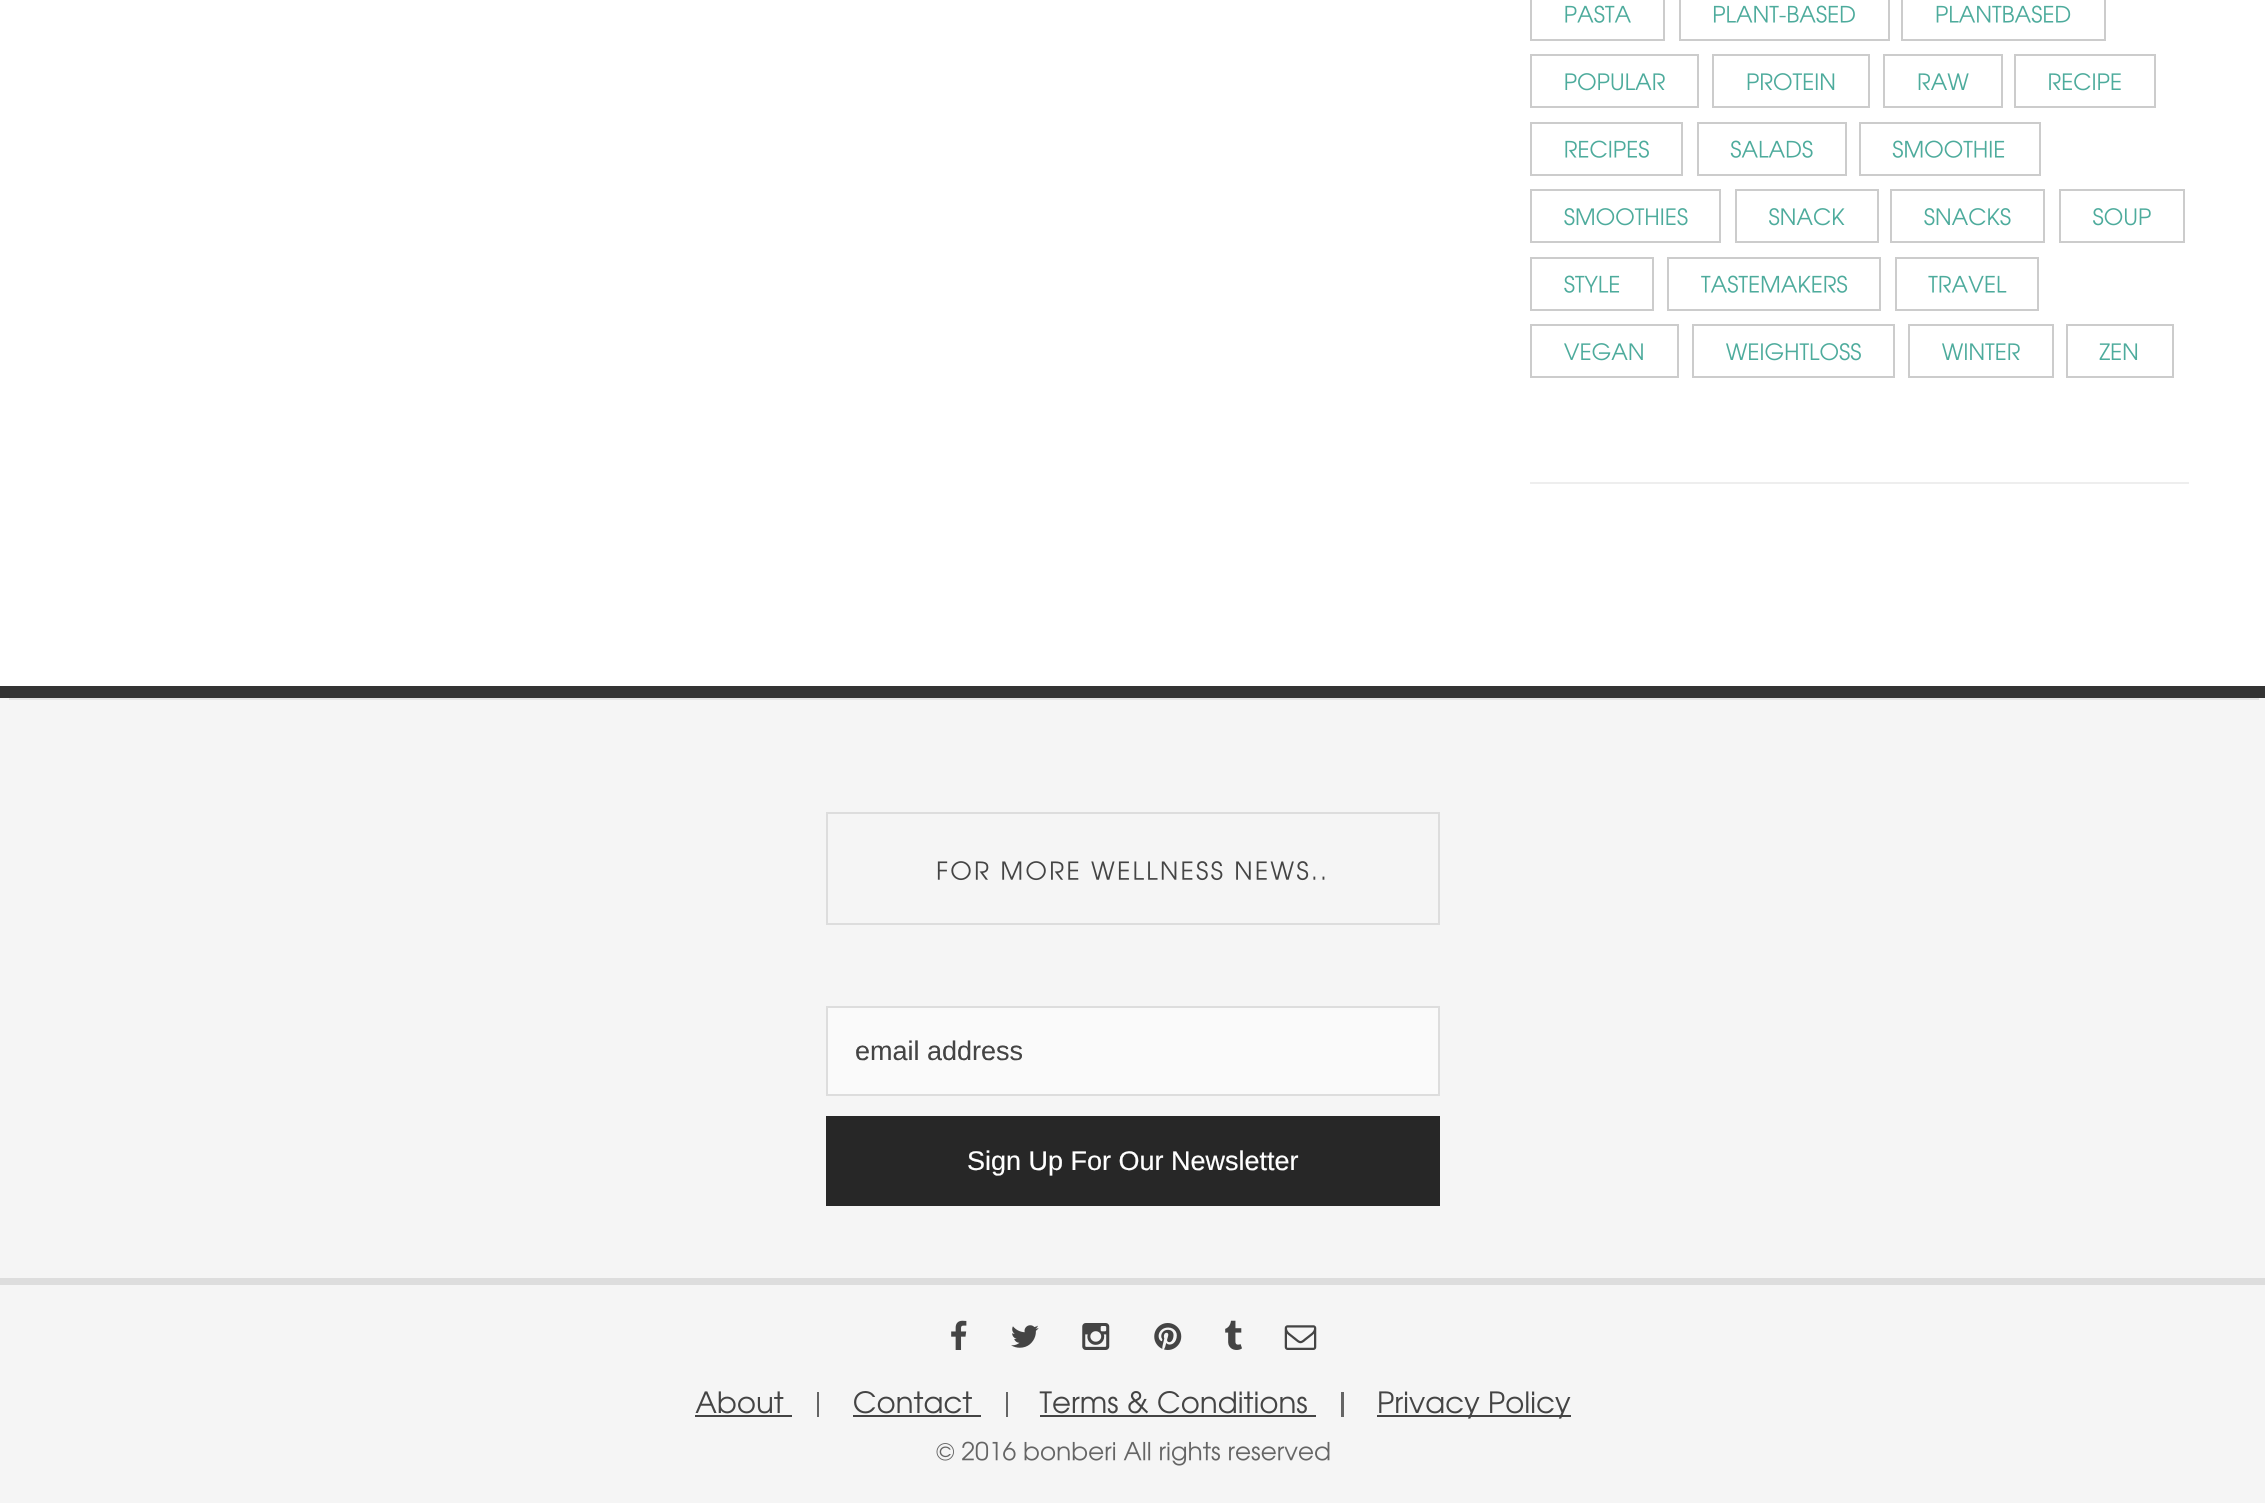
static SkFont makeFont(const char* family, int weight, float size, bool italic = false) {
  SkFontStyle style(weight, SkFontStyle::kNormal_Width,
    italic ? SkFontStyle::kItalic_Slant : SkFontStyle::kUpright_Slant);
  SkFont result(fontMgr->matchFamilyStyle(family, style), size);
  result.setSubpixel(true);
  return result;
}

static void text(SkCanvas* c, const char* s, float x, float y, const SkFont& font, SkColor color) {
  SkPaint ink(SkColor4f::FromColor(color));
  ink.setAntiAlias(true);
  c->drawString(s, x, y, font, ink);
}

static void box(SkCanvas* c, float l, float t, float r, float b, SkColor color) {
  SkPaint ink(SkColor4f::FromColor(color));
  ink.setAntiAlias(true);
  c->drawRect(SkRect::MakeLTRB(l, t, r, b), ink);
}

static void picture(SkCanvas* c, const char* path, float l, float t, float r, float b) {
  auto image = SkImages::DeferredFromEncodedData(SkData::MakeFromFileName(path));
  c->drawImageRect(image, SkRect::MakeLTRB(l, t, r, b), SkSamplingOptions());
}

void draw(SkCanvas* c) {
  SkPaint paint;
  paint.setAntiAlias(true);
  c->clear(0xffffffff);
  box(c, 1530, 482, 2189, 484, 0xffeeeeee);
  paint.setStyle(SkPaint::kStroke_Style);
  paint.setStrokeWidth(2);
  paint.setColor(0xffcccccc);
  c->drawRect(SkRect::MakeLTRB(1531, -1, 1664, 40), paint);
  picture(c, "img_01.png", 1565, 5, 1631, 23);
  c->drawRect(SkRect::MakeLTRB(1680, -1, 1889, 40), paint);
  picture(c, "img_02.png", 1713, 5, 1855, 23);
  c->drawRect(SkRect::MakeLTRB(1902, -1, 2105, 40), paint);
  picture(c, "img_03.png", 1936, 5, 2071, 23);
  c->drawRect(SkRect::MakeLTRB(1531, 55, 1698, 107), paint);
  picture(c, "img_04.png", 1565, 73, 1665, 91);
  c->drawRect(SkRect::MakeLTRB(1713, 55, 1869, 107), paint);
  picture(c, "img_05.png", 1747, 73, 1835, 91);
  c->drawRect(SkRect::MakeLTRB(1884, 55, 2002, 107), paint);
  picture(c, "img_06.png", 1918, 73, 1969, 90);
  c->drawRect(SkRect::MakeLTRB(2015, 55, 2155, 107), paint);
  picture(c, "img_07.png", 2049, 73, 2121, 91);
  c->drawRect(SkRect::MakeLTRB(1531, 123, 1682, 175), paint);
  picture(c, "img_08.png", 1565, 140, 1649, 158);
  c->drawRect(SkRect::MakeLTRB(1698, 123, 1846, 175), paint);
  picture(c, "img_09.png", 1730, 140, 1813, 158);
  c->drawRect(SkRect::MakeLTRB(1860, 123, 2040, 175), paint);
  picture(c, "img_10.png", 1892, 140, 2005, 158);
  c->drawRect(SkRect::MakeLTRB(1531, 190, 1720, 242), paint);
  picture(c, "img_11.png", 1564, 208, 1688, 226);
  c->drawRect(SkRect::MakeLTRB(1736, 190, 1878, 242), paint);
  picture(c, "img_12.png", 1769, 208, 1845, 226);
  c->drawRect(SkRect::MakeLTRB(1891, 190, 2044, 242), paint);
  picture(c, "img_13.png", 1924, 208, 2011, 226);
  c->drawRect(SkRect::MakeLTRB(2060, 190, 2184, 242), paint);
  picture(c, "img_14.png", 2093, 208, 2151, 226);
  c->drawRect(SkRect::MakeLTRB(1531, 258, 1653, 310), paint);
  picture(c, "img_15.png", 1564, 275, 1620, 293);
  c->drawRect(SkRect::MakeLTRB(1668, 258, 1880, 310), paint);
  picture(c, "img_16.png", 1701, 275, 1848, 293);
  c->drawRect(SkRect::MakeLTRB(1896, 258, 2038, 310), paint);
  picture(c, "img_17.png", 1928, 275, 2007, 293);
  c->drawRect(SkRect::MakeLTRB(1531, 325, 1678, 377), paint);
  picture(c, "img_18.png", 1564, 343, 1643, 361);
  c->drawRect(SkRect::MakeLTRB(1693, 325, 1894, 377), paint);
  picture(c, "img_19.png", 1726, 343, 1861, 361);
  c->drawRect(SkRect::MakeLTRB(1909, 325, 2053, 377), paint);
  picture(c, "img_20.png", 1942, 343, 2020, 360);
  c->drawRect(SkRect::MakeLTRB(2067, 325, 2173, 377), paint);
  picture(c, "img_21.png", 2099, 343, 2138, 360);
  box(c, 0, 698, 2265, 1278, 0xfff5f5f5);
  box(c, 0, 686, 2265, 698, 0xff333333);
  box(c, 9, 698, 2259, 700, 0xffe2e2e2);
  paint.setColor(0xffdddddd);
  c->drawRect(SkRect::MakeLTRB(827, 813, 1439, 924), paint);
  picture(c, "img_22.png", 937, 861, 1325, 881);
  paint.setStyle(SkPaint::kFill_Style);
  paint.setColor(0xfffafafa);
  c->drawRect(SkRect::MakeLTRB(827, 1007, 1439, 1095), paint);
  paint.setStyle(SkPaint::kStroke_Style);
  paint.setColor(0xffdddddd);
  c->drawRect(SkRect::MakeLTRB(827, 1007, 1439, 1095), paint);
  SkFont face1 = makeFont("Liberation Sans", 400, 27);
  text(c, "email address", 855, 1060, face1, 0xff444444);
  box(c, 826, 1116, 1440, 1206, 0xff272727);
  text(c, "Sign Up For Our Newsletter", 967, 1170, face1, 0xffffffff);
  box(c, 0, 1285, 2265, 1503, 0xfff5f5f5);
  box(c, 0, 1278, 2265, 1285, 0xffdddddd);
  picture(c, "img_23.png", 951, 1320, 967, 1350);
  picture(c, "img_24.png", 1011, 1325, 1039, 1348);
  picture(c, "img_25.png", 1082, 1323, 1110, 1350);
  picture(c, "img_26.png", 1154, 1323, 1182, 1350);
  picture(c, "img_27.png", 1225, 1320, 1242, 1350);
  picture(c, "img_28.png", 1284, 1325, 1317, 1350);
  picture(c, "img_29.png", 695, 1391, 784, 1414);
  box(c, 817, 1392, 819, 1417, 0xff656565);
  picture(c, "img_30.png", 854, 1391, 972, 1414);
  box(c, 1006, 1392, 1008, 1417, 0xff656565);
  picture(c, "img_31.png", 1039, 1391, 1307, 1414);
  box(c, 1341, 1392, 1344, 1417, 0xff656565);
  box(c, 1377, 1415, 1571, 1417, 0xff444444);
  picture(c, "img_32.png", 1379, 1391, 1571, 1419);
  box(c, 695, 1415, 792, 1417, 0xff444444);
  box(c, 853, 1415, 981, 1417, 0xff444444);
  box(c, 1040, 1415, 1316, 1417, 0xff444444);
  picture(c, "img_33.png", 936, 1441, 1330, 1466);
}
